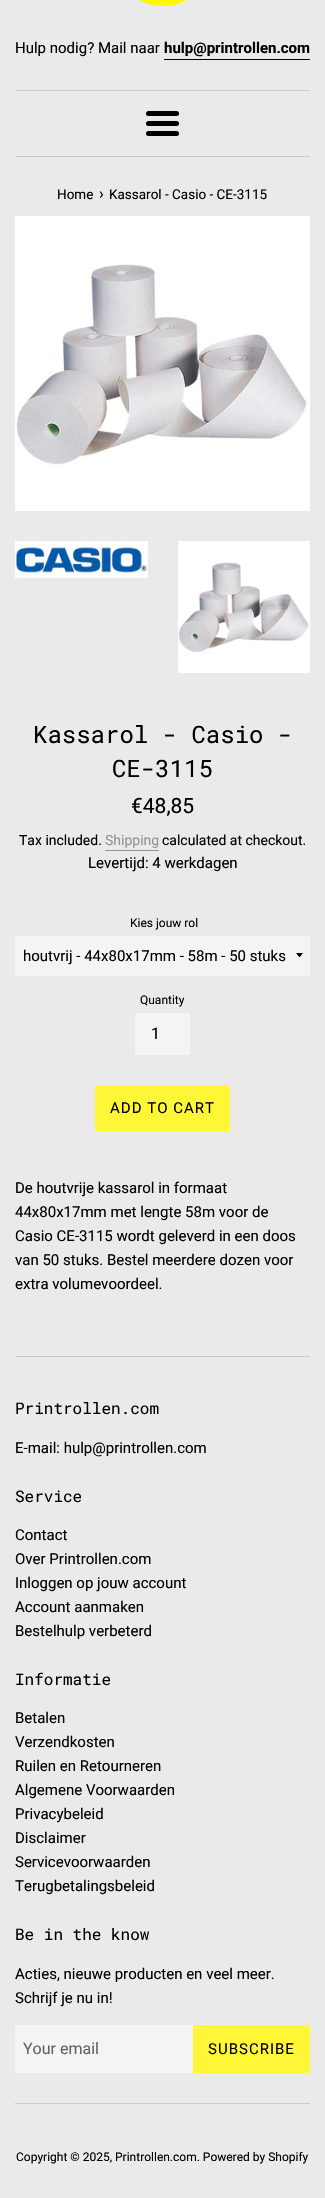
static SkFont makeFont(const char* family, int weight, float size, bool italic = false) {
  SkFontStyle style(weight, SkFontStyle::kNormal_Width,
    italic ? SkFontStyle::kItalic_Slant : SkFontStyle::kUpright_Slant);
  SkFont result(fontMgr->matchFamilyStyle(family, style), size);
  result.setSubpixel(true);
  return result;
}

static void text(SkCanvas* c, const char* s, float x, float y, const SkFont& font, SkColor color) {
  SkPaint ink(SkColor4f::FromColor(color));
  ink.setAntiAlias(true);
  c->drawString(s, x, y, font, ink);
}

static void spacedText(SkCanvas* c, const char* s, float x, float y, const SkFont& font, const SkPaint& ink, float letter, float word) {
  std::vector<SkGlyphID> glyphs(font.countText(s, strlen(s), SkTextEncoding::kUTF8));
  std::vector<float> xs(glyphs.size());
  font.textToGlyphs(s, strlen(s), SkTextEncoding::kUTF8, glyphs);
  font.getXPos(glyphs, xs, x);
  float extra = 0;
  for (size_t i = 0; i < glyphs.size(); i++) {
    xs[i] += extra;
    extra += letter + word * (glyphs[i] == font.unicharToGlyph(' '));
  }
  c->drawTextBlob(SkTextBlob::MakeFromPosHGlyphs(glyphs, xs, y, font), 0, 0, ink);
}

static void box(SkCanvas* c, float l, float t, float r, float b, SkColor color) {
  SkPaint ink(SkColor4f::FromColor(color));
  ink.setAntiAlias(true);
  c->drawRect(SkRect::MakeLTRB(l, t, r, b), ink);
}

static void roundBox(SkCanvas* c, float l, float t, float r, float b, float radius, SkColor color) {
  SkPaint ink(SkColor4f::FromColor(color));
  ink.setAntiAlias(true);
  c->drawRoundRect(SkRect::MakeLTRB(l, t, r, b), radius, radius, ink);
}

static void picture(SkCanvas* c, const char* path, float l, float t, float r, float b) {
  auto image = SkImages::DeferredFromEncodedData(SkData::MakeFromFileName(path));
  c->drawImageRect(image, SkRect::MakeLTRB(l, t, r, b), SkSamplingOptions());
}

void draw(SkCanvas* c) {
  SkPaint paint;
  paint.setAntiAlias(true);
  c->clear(0xffeaeaea);
  picture(c, "img_01.png", 139, 0, 187, 6);
  SkFont face1 = makeFont("Roboto", 400, 15);
  text(c, "Hulp nodig? Mail naar", 15, 53, face1, 0xff000000);
  SkFont face2 = makeFont("Roboto", 700, 15);
  text(c, "hulp@printrollen.com", 164, 53, face2, 0xff000000);
  box(c, 164, 59, 310, 60, 0xff000000);
  box(c, 15, 90, 310, 91, 0xffcccccc);
  roundBox(c, 146, 111, 179, 116, 2.5f, 0xff000000);
  roundBox(c, 146, 121, 179, 126, 2.5f, 0xff000000);
  roundBox(c, 146, 131, 179, 136, 2.5f, 0xff000000);
  box(c, 15, 156, 310, 157, 0xffcccccc);
  SkFont face3 = makeFont("Roboto", 400, 13.5f);
  text(c, "Home", 57, 199, face3, 0xff000000);
  SkFont face4 = makeFont("Roboto", 400, 16);
  text(c, "›", 99, 199, face4, 0xff000000);
  text(c, "Kassarol - Casio - CE-3115", 109, 199, face3, 0xff000000);
  picture(c, "img_02.png", 15, 216, 310, 511);
  picture(c, "img_03.png", 15, 541, 148, 578);
  picture(c, "img_04.png", 178, 541, 310, 673);
  SkFont face5 = makeFont("Roboto Mono", 400, 24);
  text(c, "Kassarol - Casio -", 33, 743, face5, 0xff000000);
  text(c, "CE-3115", 112, 777, face5, 0xff000000);
  SkFont face6 = makeFont("Roboto", 400, 21);
  text(c, "€48,85", 131, 813, face6, 0xff000000);
  SkFont face7 = makeFont("Roboto", 400, 14);
  text(c, "Tax included.", 19, 845, face7, 0xff000000);
  text(c, "Shipping", 105, 845, face7, 0xff939393);
  box(c, 105, 850, 159, 851, 0xff939393);
  text(c, "calculated at checkout.", 162, 845, face7, 0xff000000);
  text(c, "Levertijd: 4 werkdagen", 88, 868, face1, 0xff000000);
  SkFont face8 = makeFont("Roboto", 400, 12);
  text(c, "Kies jouw rol", 130, 927, face8, 0xff000000);
  box(c, 15, 936, 310, 976, 0xfff4f4f4);
  paint.setColor(0xff000000);
  c->drawPath(SkPathBuilder().moveTo(296, 953).cubicTo(300.5f, 958.5f, 298.5f, 958.5f, 303, 953).close().detach(), paint);
  text(c, "houtvrij - 44x80x17mm - 58m - 50 stuks", 23, 961, face1, 0xff000000);
  text(c, "Quantity", 140, 1004, face8, 0xff000000);
  box(c, 135, 1013, 190, 1055, 0xfff4f4f4);
  text(c, "1", 151, 1039, face4, 0xff000000);
  box(c, 95, 1085, 230, 1131, 0xfffff637);
  spacedText(c, "ADD TO CART", 110, 1113, face1, paint, 1, 0);
  text(c, "De houtvrije kassarol in formaat", 15, 1193, face1, 0xff000000);
  text(c, "44x80x17mm met lengte 58m voor de", 15, 1217, face1, 0xff000000);
  text(c, "Casio CE-3115 wordt geleverd in een doos", 15, 1241, face1, 0xff000000);
  text(c, "van 50 stuks. Bestel meerdere dozen voor", 15, 1265, face1, 0xff000000);
  text(c, "extra volumevoordeel.", 15, 1289, face1, 0xff000000);
  box(c, 15, 1356, 310, 1357, 0xffcccccc);
  SkFont face9 = makeFont("Roboto Mono", 400, 16);
  text(c, "Printrollen.com", 15, 1414, face9, 0xff000000);
  text(c, "E-mail: hulp@printrollen.com", 15, 1453, face1, 0xff000000);
  text(c, "Service", 15, 1502, face9, 0xff000000);
  text(c, "Contact", 15, 1540, face1, 0xff000000);
  text(c, "Over Printrollen.com", 15, 1564, face1, 0xff000000);
  text(c, "Inloggen op jouw account", 15, 1588, face1, 0xff000000);
  text(c, "Account aanmaken", 15, 1612, face1, 0xff000000);
  text(c, "Bestelhulp verbeterd", 15, 1636, face1, 0xff000000);
  text(c, "Informatie", 15, 1685, face9, 0xff000000);
  text(c, "Betalen", 15, 1723, face1, 0xff000000);
  text(c, "Verzendkosten", 15, 1747, face1, 0xff000000);
  text(c, "Ruilen en Retourneren", 15, 1771, face1, 0xff000000);
  text(c, "Algemene Voorwaarden", 15, 1795, face1, 0xff000000);
  text(c, "Privacybeleid", 15, 1819, face1, 0xff000000);
  text(c, "Disclaimer", 15, 1843, face1, 0xff000000);
  text(c, "Servicevoorwaarden", 15, 1867, face1, 0xff000000);
  text(c, "Terugbetalingsbeleid", 15, 1891, face1, 0xff000000);
  text(c, "Be in the know", 15, 1940, face9, 0xff000000);
  text(c, "Acties, nieuwe producten en veel meer.", 15, 1979, face1, 0xff000000);
  text(c, "Schrijf je nu in!", 15, 2003, face1, 0xff000000);
  box(c, 15, 2025, 193, 2073, 0xfff4f4f4);
  text(c, "Your email", 23, 2054, face4, 0xff626262);
  box(c, 193, 2025, 310, 2073, 0xfffff637);
  spacedText(c, "SUBSCRIBE", 208, 2054, face1, paint, 1, 0);
  box(c, 15, 2103, 310, 2104, 0xffcccccc);
  text(c, "Copyright © 2025, Printrollen.com. Powered by Shopify", 16, 2161, face8, 0xff000000);
}
